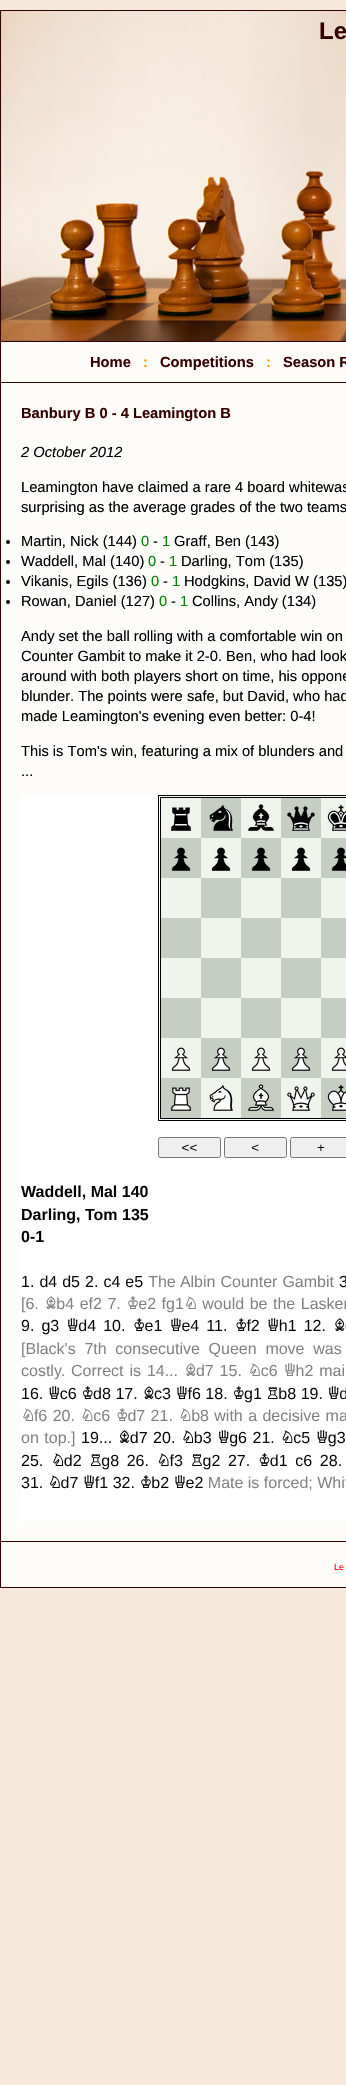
static SkFont makeFont(const char* family, int weight, float size, bool italic = false) {
  SkFontStyle style(weight, SkFontStyle::kNormal_Width,
    italic ? SkFontStyle::kItalic_Slant : SkFontStyle::kUpright_Slant);
  SkFont result(fontMgr->matchFamilyStyle(family, style), size);
  result.setSubpixel(true);
  return result;
}

static void text(SkCanvas* c, const char* s, float x, float y, const SkFont& font, SkColor color) {
  SkPaint ink(SkColor4f::FromColor(color));
  ink.setAntiAlias(true);
  c->drawString(s, x, y, font, ink);
}

static void box(SkCanvas* c, float l, float t, float r, float b, SkColor color) {
  SkPaint ink(SkColor4f::FromColor(color));
  ink.setAntiAlias(true);
  c->drawRect(SkRect::MakeLTRB(l, t, r, b), ink);
}

static void picture(SkCanvas* c, const char* path, float l, float t, float r, float b) {
  auto image = SkImages::DeferredFromEncodedData(SkData::MakeFromFileName(path));
  c->drawImageRect(image, SkRect::MakeLTRB(l, t, r, b), SkSamplingOptions());
}

void draw(SkCanvas* c) {
  SkPaint paint;
  paint.setAntiAlias(true);
  c->clear(0xfff4e8db);
  box(c, 1, 342, 346, 1587, 0xfffefcf9);
  paint.setStyle(SkPaint::kStroke_Style);
  paint.setStrokeWidth(1);
  paint.setColor(0xff330000);
  c->drawRect(SkRect::MakeLTRB(0.5f, 10.5f, 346.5f, 1587.5f), paint);
  picture(c, "img_01.png", 1, 11, 346, 341);
  box(c, 1, 341, 346, 342, 0xff330000);
  SkFont face1 = makeFont("Liberation Sans", 700, 24);
  text(c, "Le", 319, 39, face1, 0xff330000);
  box(c, 1, 382, 346, 383, 0xff330000);
  SkFont face2 = makeFont("Liberation Sans", 700, 14.7f);
  text(c, "Home", 90, 367, face2, 0xff330000);
  text(c, ":", 143, 367, face2, 0xffff9900);
  text(c, "Competitions", 160, 367, face2, 0xff330000);
  text(c, ":", 266, 367, face2, 0xffff9900);
  text(c, "Season R", 283, 367, face2, 0xff330000);
  text(c, "Banbury B 0 - 4 Leamington B", 21, 418, face2, 0xff330000);
  SkFont face3 = makeFont("Liberation Sans", 400, 14.7f, true);
  text(c, "2 October 2012", 21, 457, face3, 0xff000000);
  SkFont face4 = makeFont("Liberation Sans", 400, 14.7f);
  text(c, "Leamington have claimed a rare 4 board whitewas", 21, 492, face4, 0xff000000);
  text(c, "surprising as the average grades of the two teams", 21, 512, face4, 0xff000000);
  paint.setStyle(SkPaint::kFill_Style);
  paint.setColor(0xff000000);
  c->drawCircle(8, 542, 2, paint);
  text(c, "Martin, Nick (144)", 21, 546, face4, 0xff000000);
  text(c, "0", 141, 546, face4, 0xff008000);
  text(c, "-", 153, 546, face4, 0xff000000);
  text(c, "1", 162, 546, face4, 0xff008000);
  text(c, "Graff, Ben (143)", 174, 546, face4, 0xff000000);
  c->drawCircle(8, 562, 2, paint);
  text(c, "Waddell, Mal (140)", 21, 566, face4, 0xff000000);
  text(c, "0", 148, 566, face4, 0xff008000);
  text(c, "-", 160, 566, face4, 0xff000000);
  text(c, "1", 169, 566, face4, 0xff008000);
  text(c, "Darling, Tom (135)", 181, 566, face4, 0xff000000);
  c->drawCircle(8, 582, 2, paint);
  text(c, "Vikanis, Egils (136)", 21, 586, face4, 0xff000000);
  text(c, "0", 151, 586, face4, 0xff008000);
  text(c, "-", 163, 586, face4, 0xff000000);
  text(c, "1", 172, 586, face4, 0xff008000);
  text(c, "Hodgkins, David W (135)", 184, 586, face4, 0xff000000);
  c->drawCircle(8, 602, 2, paint);
  text(c, "Rowan, Daniel (127)", 21, 606, face4, 0xff000000);
  text(c, "0", 159, 606, face4, 0xff008000);
  text(c, "-", 171, 606, face4, 0xff000000);
  text(c, "1", 180, 606, face4, 0xff008000);
  text(c, "Collins, Andy (134)", 192, 606, face4, 0xff000000);
  text(c, "Andy set the ball rolling with a comfortable win on", 21, 641, face4, 0xff000000);
  text(c, "Counter Gambit to make it 2-0. Ben, who had look", 21, 661, face4, 0xff000000);
  text(c, "around with both players short on time, his oppone", 21, 681, face4, 0xff000000);
  text(c, "blunder. The points were safe, but David, who had", 21, 701, face4, 0xff000000);
  text(c, "made Leamington's evening even better: 0-4!", 21, 721, face4, 0xff000000);
  text(c, "This is Tom's win, featuring a mix of blunders and", 21, 756, face4, 0xff000000);
  text(c, "...", 21, 776, face4, 0xff000000);
  picture(c, "img_02.png", 21, 795, 346, 1521);
  box(c, 1, 1541, 346, 1542, 0xff330000);
  SkFont face5 = makeFont("Liberation Sans", 400, 9);
  text(c, "Le", 334, 1570, face5, 0xffff0000);
}
